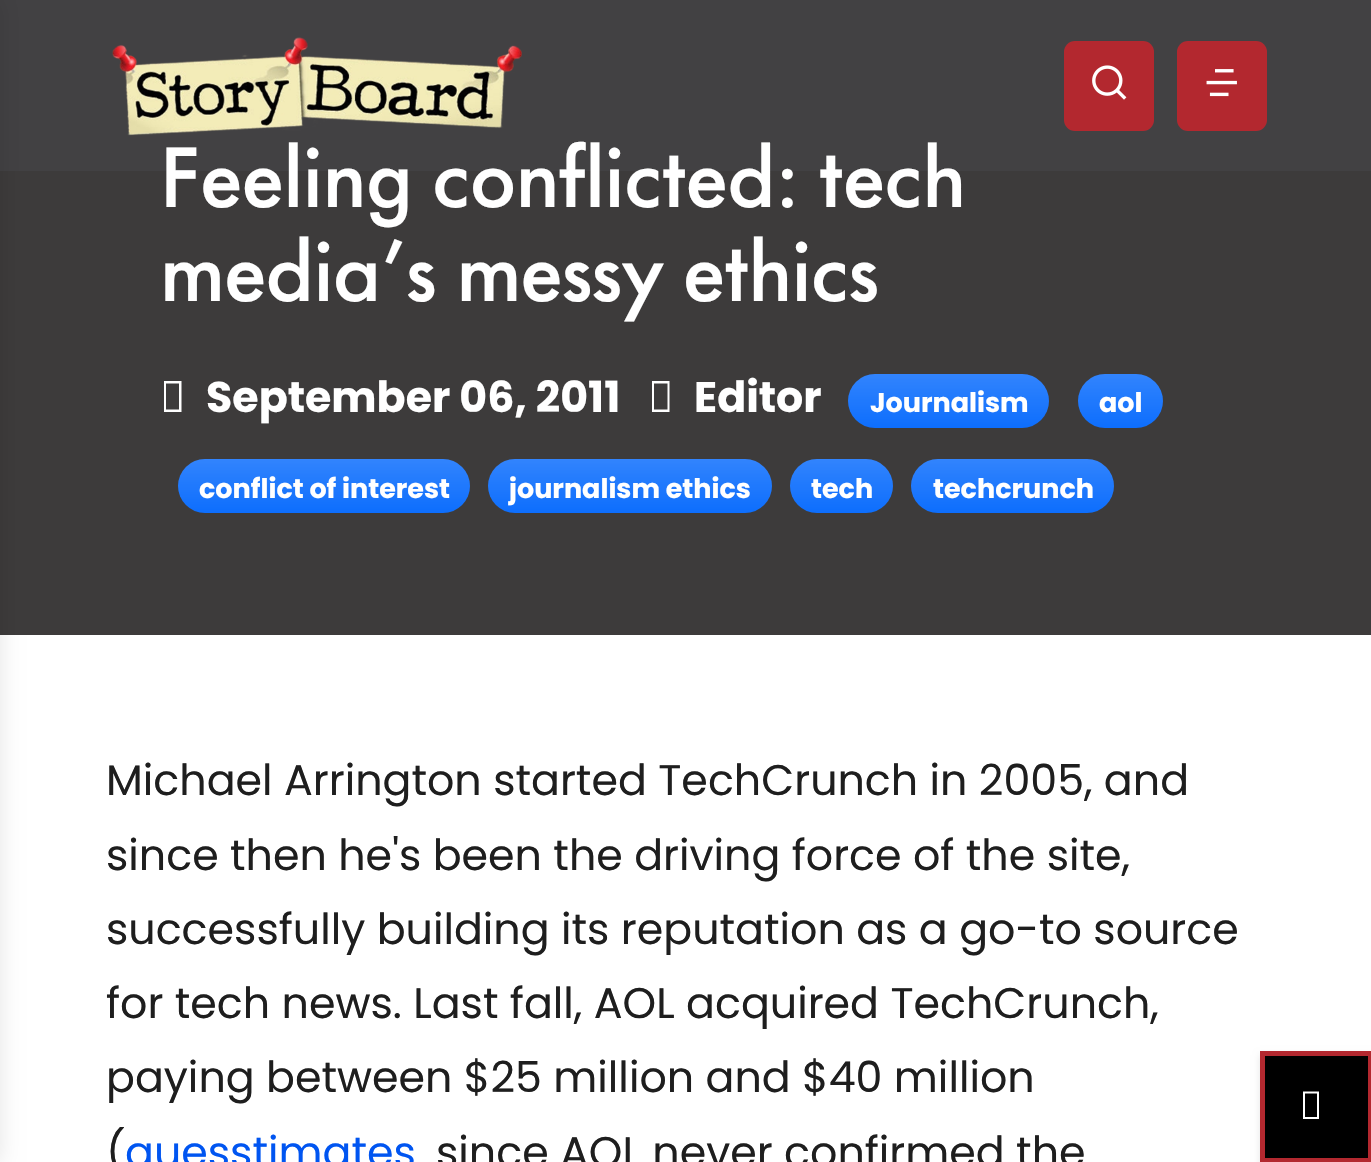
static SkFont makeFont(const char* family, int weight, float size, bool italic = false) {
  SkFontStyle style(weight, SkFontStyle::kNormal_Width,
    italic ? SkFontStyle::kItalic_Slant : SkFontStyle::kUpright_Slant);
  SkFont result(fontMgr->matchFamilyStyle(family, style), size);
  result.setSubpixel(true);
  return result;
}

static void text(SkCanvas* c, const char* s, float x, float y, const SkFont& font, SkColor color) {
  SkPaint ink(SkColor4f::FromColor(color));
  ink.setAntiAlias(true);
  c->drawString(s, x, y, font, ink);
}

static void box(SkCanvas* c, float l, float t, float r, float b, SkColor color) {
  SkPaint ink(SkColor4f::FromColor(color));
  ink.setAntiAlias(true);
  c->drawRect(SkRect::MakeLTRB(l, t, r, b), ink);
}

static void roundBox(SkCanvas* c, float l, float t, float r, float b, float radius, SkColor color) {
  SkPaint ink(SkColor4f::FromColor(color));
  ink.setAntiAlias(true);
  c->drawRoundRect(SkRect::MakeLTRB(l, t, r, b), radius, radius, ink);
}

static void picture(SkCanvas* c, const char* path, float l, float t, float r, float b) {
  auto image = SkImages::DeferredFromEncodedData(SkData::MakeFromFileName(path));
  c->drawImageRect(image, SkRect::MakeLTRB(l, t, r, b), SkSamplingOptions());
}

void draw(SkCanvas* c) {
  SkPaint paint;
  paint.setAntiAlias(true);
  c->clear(0xffffffff);
  box(c, 0, 0, 1371, 171, 0xff424143);
  box(c, 0, 171, 1371, 635, 0xff3d3b3b);
  paint.setColor(0x1a000000);
  paint.setMaskFilter(SkMaskFilter::MakeBlur(kNormal_SkBlurStyle, 11));
  c->drawRect(SkRect::MakeLTRB(-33, 0, 0, 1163), paint);
  paint.setMaskFilter(nullptr);
  picture(c, "img_01.png", 112, 37, 522, 136);
  roundBox(c, 1064, 41, 1154, 131, 11, 0xffb3282f);
  picture(c, "img_02.png", 1092, 65, 1127, 100);
  roundBox(c, 1177, 41, 1267, 131, 11, 0xffb3282f);
  picture(c, "img_03.png", 1206, 69, 1237, 97);
  SkFont face1 = makeFont("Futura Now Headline", 500, 78.75f);
  text(c, "Feeling conflicted: tech", 160, 207, face1, 0xffffffff);
  text(c, "media’s messy ethics", 160, 301, face1, 0xffffffff);
  paint.setColor(0xffffffff);
  c->drawPath(SkPathBuilder().moveTo(164, 412).lineTo(164, 381).lineTo(181.5f, 381).lineTo(181.5f, 412).close().moveTo(166, 409.5f).lineTo(179, 409.5f).lineTo(179, 383.5f).lineTo(166, 383.5f).close().detach(), paint);
  SkFont face2 = makeFont("Poppins", 700, 42.75f);
  text(c, "September 06, 2011", 206, 412, face2, 0xffffffff);
  c->drawPath(SkPathBuilder().moveTo(652, 412).lineTo(652, 381).lineTo(669.5f, 381).lineTo(669.5f, 412).close().moveTo(654, 409.5f).lineTo(667.5f, 409.5f).lineTo(667.5f, 383.5f).lineTo(654, 383.5f).close().detach(), paint);
  text(c, "Editor", 694, 412, face2, 0xffffffff);
  roundBox(c, 848, 374, 1049, 428, 27, 0xff0d6efd);
  {
    const SkColor colors[] = {0x26ffffff, 0x00ffffff};
    const float stops[] = {0, 1};
    const SkPoint ends[] = {{948, 374}, {948, 428}};
    paint.setShader(SkGradientShader::MakeLinear(ends, colors, stops, 2, SkTileMode::kClamp));
    paint.setAlpha(255);
  }
  c->drawRoundRect(SkRect::MakeLTRB(848, 374, 1049, 428), 27, 27, paint);
  SkFont face3 = makeFont("Poppins", 700, 27);
  text(c, "Journalism", 870, 412, face3, 0xffffffff);
  roundBox(c, 1078, 374, 1163, 428, 27, 0xff0d6efd);
  {
    const SkColor colors[] = {0x26ffffff, 0x00ffffff};
    const float stops[] = {0, 1};
    const SkPoint ends[] = {{1121, 374}, {1121, 428}};
    paint.setShader(SkGradientShader::MakeLinear(ends, colors, stops, 2, SkTileMode::kClamp));
    paint.setAlpha(255);
  }
  c->drawRoundRect(SkRect::MakeLTRB(1078, 374, 1163, 428), 27, 27, paint);
  text(c, "aol", 1099, 412, face3, 0xffffffff);
  roundBox(c, 178, 459, 470, 513, 27, 0xff0d6efd);
  {
    const SkColor colors[] = {0x26ffffff, 0x00ffffff};
    const float stops[] = {0, 1};
    const SkPoint ends[] = {{324, 459}, {324, 513}};
    paint.setShader(SkGradientShader::MakeLinear(ends, colors, stops, 2, SkTileMode::kClamp));
    paint.setAlpha(255);
  }
  c->drawRoundRect(SkRect::MakeLTRB(178, 459, 470, 513), 27, 27, paint);
  text(c, "conflict of interest", 199, 498, face3, 0xffffffff);
  roundBox(c, 488, 459, 772, 513, 27, 0xff0d6efd);
  {
    const SkColor colors[] = {0x26ffffff, 0x00ffffff};
    const float stops[] = {0, 1};
    const SkPoint ends[] = {{630, 459}, {630, 513}};
    paint.setShader(SkGradientShader::MakeLinear(ends, colors, stops, 2, SkTileMode::kClamp));
    paint.setAlpha(255);
  }
  c->drawRoundRect(SkRect::MakeLTRB(488, 459, 772, 513), 27, 27, paint);
  text(c, "journalism ethics", 509, 498, face3, 0xffffffff);
  roundBox(c, 790, 459, 893, 513, 27, 0xff0d6efd);
  {
    const SkColor colors[] = {0x26ffffff, 0x00ffffff};
    const float stops[] = {0, 1};
    const SkPoint ends[] = {{842, 459}, {842, 513}};
    paint.setShader(SkGradientShader::MakeLinear(ends, colors, stops, 2, SkTileMode::kClamp));
    paint.setAlpha(255);
  }
  c->drawRoundRect(SkRect::MakeLTRB(790, 459, 893, 513), 27, 27, paint);
  text(c, "tech", 811, 498, face3, 0xffffffff);
  roundBox(c, 911, 459, 1114, 513, 27, 0xff0d6efd);
  {
    const SkColor colors[] = {0x26ffffff, 0x00ffffff};
    const float stops[] = {0, 1};
    const SkPoint ends[] = {{1013, 459}, {1013, 513}};
    paint.setShader(SkGradientShader::MakeLinear(ends, colors, stops, 2, SkTileMode::kClamp));
    paint.setAlpha(255);
  }
  c->drawRoundRect(SkRect::MakeLTRB(911, 459, 1114, 513), 27, 27, paint);
  text(c, "techcrunch", 933, 498, face3, 0xffffffff);
  SkFont face4 = makeFont("Poppins", 400, 42.75f);
  text(c, "Michael Arrington started TechCrunch in 2005, and", 106, 795, face4, 0xff1e1e1e);
  text(c, "since then he's been the driving force of the site,", 106, 870, face4, 0xff1e1e1e);
  text(c, "successfully building its reputation as a go-to source", 106, 944, face4, 0xff1e1e1e);
  text(c, "for tech news. Last fall, AOL acquired TechCrunch,", 106, 1018, face4, 0xff1e1e1e);
  text(c, "paying between $25 million and $40 million", 106, 1092, face4, 0xff1e1e1e);
  text(c, "(", 106, 1167, face4, 0xff1e1e1e);
  text(c, "guesstimates", 125, 1167, face4, 0xff0055f1);
  text(c, "since AOL never confirmed the", 436, 1167, face4, 0xff1e1e1e);
  paint.setShader(nullptr);
  paint.setColor(0x1a000000);
  paint.setMaskFilter(SkMaskFilter::MakeBlur(kNormal_SkBlurStyle, 3.5f));
  c->drawRect(SkRect::MakeLTRB(1260, 1055, 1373, 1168), paint);
  paint.setMaskFilter(nullptr);
  paint.setColor(0xff000000);
  c->drawRect(SkRect::MakeLTRB(1262.5f, 1053.5f, 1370.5f, 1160.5f), paint);
  paint.setStyle(SkPaint::kStroke_Style);
  paint.setStrokeWidth(5);
  paint.setColor(0xffb3282f);
  c->drawRect(SkRect::MakeLTRB(1262.5f, 1053.5f, 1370.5f, 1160.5f), paint);
  paint.setStyle(SkPaint::kFill_Style);
  paint.setColor(0xffffffff);
  c->drawPath(SkPathBuilder().moveTo(1303, 1119).lineTo(1303, 1091.5f).lineTo(1319, 1091.5f).lineTo(1319, 1119).close().moveTo(1305, 1117).lineTo(1317, 1117).lineTo(1317, 1093.5f).lineTo(1305, 1093.5f).close().detach(), paint);
}
